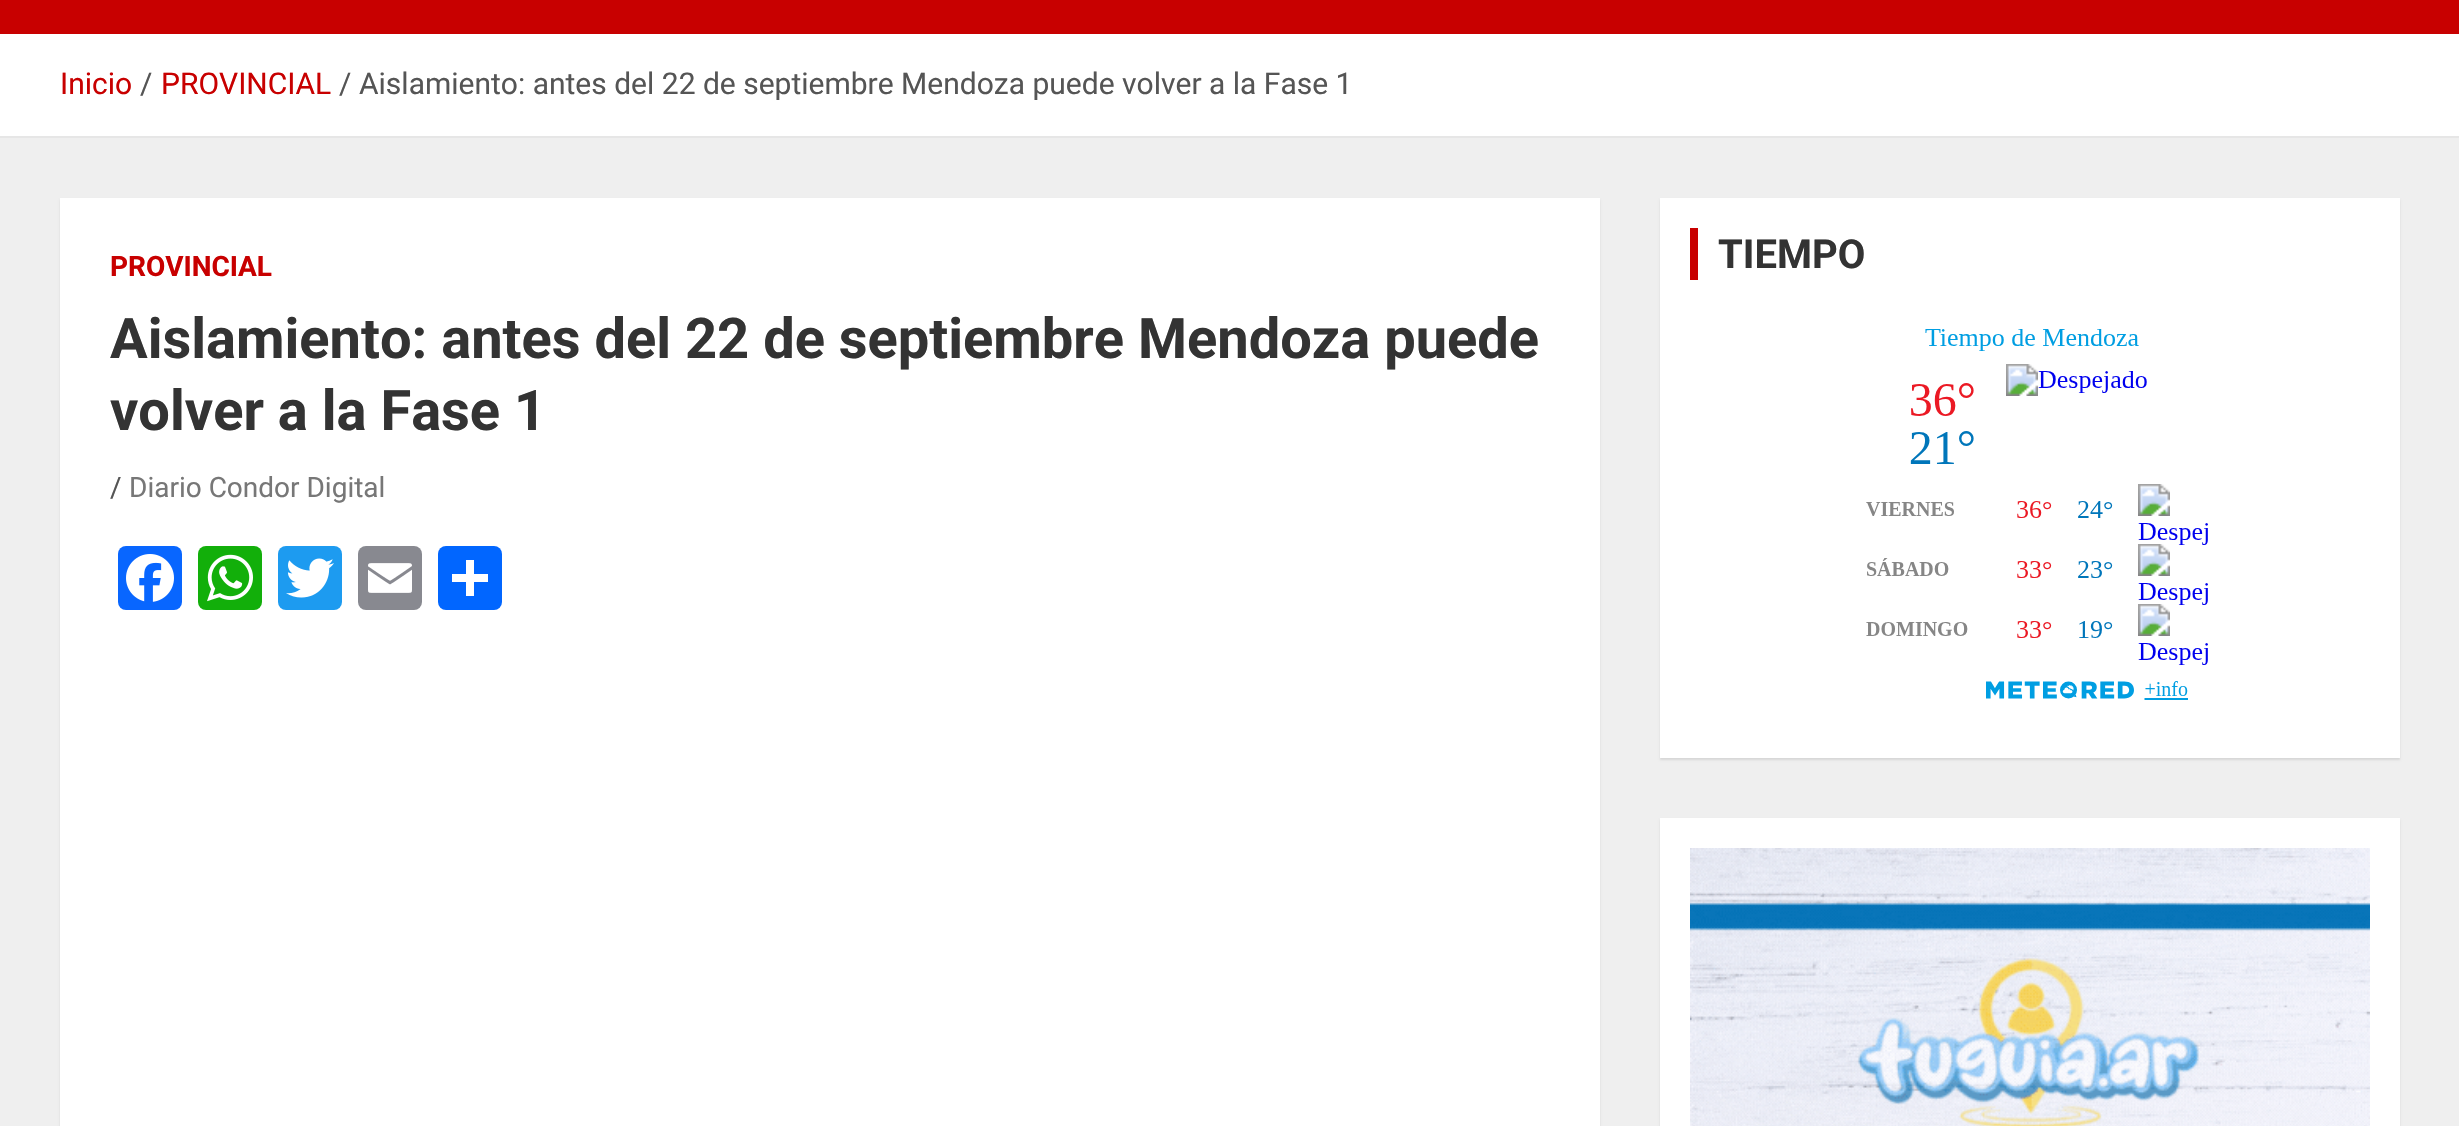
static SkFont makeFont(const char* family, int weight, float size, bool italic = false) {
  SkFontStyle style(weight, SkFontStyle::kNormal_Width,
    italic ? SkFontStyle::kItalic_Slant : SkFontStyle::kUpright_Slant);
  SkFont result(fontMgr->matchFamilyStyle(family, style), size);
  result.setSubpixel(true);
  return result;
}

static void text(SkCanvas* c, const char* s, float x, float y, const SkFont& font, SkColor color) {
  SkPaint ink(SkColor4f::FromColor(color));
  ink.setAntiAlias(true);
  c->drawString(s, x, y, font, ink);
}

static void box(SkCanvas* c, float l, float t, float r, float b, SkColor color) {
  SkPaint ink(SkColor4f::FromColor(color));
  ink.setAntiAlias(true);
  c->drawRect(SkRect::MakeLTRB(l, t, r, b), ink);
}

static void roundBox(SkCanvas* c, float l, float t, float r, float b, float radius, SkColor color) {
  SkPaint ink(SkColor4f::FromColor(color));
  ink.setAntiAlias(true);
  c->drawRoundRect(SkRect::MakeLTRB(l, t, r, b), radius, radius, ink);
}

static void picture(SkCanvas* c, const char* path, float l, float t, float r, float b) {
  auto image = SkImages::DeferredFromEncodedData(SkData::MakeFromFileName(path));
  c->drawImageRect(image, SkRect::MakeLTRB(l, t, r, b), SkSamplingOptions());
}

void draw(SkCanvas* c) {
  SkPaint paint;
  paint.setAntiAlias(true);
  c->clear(0xffefefef);
  box(c, 0, 0, 2459, 34, 0xffc80000);
  box(c, 0, 34, 2459, 136, 0xffffffff);
  box(c, 0, 136, 2459, 138, 0xffe6e6e6);
  SkFont face1 = makeFont("Roboto", 400, 30);
  text(c, "Inicio", 60, 94, face1, 0xffc80000);
  text(c, "/", 140, 94, face1, 0xff555555);
  text(c, "PROVINCIAL", 161, 94, face1, 0xffc80000);
  text(c, "/", 339, 94, face1, 0xff555555);
  text(c, "Aislamiento: antes del 22 de septiembre Mendoza puede volver a la Fase 1", 359, 94, face1, 0xff555555);
  paint.setColor(0x1a000000);
  paint.setMaskFilter(SkMaskFilter::MakeBlur(kNormal_SkBlurStyle, 1));
  c->drawRect(SkRect::MakeLTRB(60, 200, 1600, 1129), paint);
  paint.setMaskFilter(nullptr);
  box(c, 60, 198, 1600, 1126, 0xffffffff);
  SkFont face2 = makeFont("Roboto", 700, 28);
  text(c, "PROVINCIAL", 110, 276, face2, 0xffc80000);
  SkFont face3 = makeFont("Roboto", 700, 56);
  text(c, "Aislamiento: antes del 22 de septiembre Mendoza puede", 110, 358, face3, 0xff333333);
  text(c, "volver a la Fase 1", 110, 430, face3, 0xff333333);
  SkFont face4 = makeFont("Roboto", 400, 28);
  text(c, "/", 110, 497, face4, 0xff555555);
  text(c, "Diario Condor Digital", 129, 497, face4, 0xff777777);
  roundBox(c, 118, 546, 182, 610, 8, 0xff0866ff);
  picture(c, "img_01.png", 126, 554, 174, 602);
  roundBox(c, 198, 546, 262, 610, 8, 0xff12af0a);
  picture(c, "img_02.png", 207, 554, 253, 602);
  roundBox(c, 278, 546, 342, 610, 8, 0xff1d9bf0);
  picture(c, "img_03.png", 286, 558, 334, 598);
  roundBox(c, 358, 546, 422, 610, 8, 0xff888990);
  picture(c, "img_04.png", 368, 563, 412, 593);
  roundBox(c, 438, 546, 502, 610, 8, 0xff0166ff);
  box(c, 466, 560, 474, 596, 0xffffffff);
  box(c, 452, 574, 488, 582, 0xffffffff);
  paint.setMaskFilter(SkMaskFilter::MakeBlur(kNormal_SkBlurStyle, 1));
  c->drawRect(SkRect::MakeLTRB(1660, 200, 2400, 760), paint);
  paint.setMaskFilter(nullptr);
  box(c, 1660, 198, 2400, 758, 0xffffffff);
  box(c, 1690, 228, 1698, 280, 0xffc80000);
  SkFont face5 = makeFont("Roboto", 700, 40);
  text(c, "TIEMPO", 1718, 268, face5, 0xff333333);
  picture(c, "img_05.png", 1866, 329, 2208, 700);
  paint.setMaskFilter(SkMaskFilter::MakeBlur(kNormal_SkBlurStyle, 1));
  c->drawRect(SkRect::MakeLTRB(1660, 820, 2400, 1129), paint);
  paint.setMaskFilter(nullptr);
  box(c, 1660, 818, 2400, 1126, 0xffffffff);
  picture(c, "img_06.png", 1690, 848, 2370, 1126);
}
